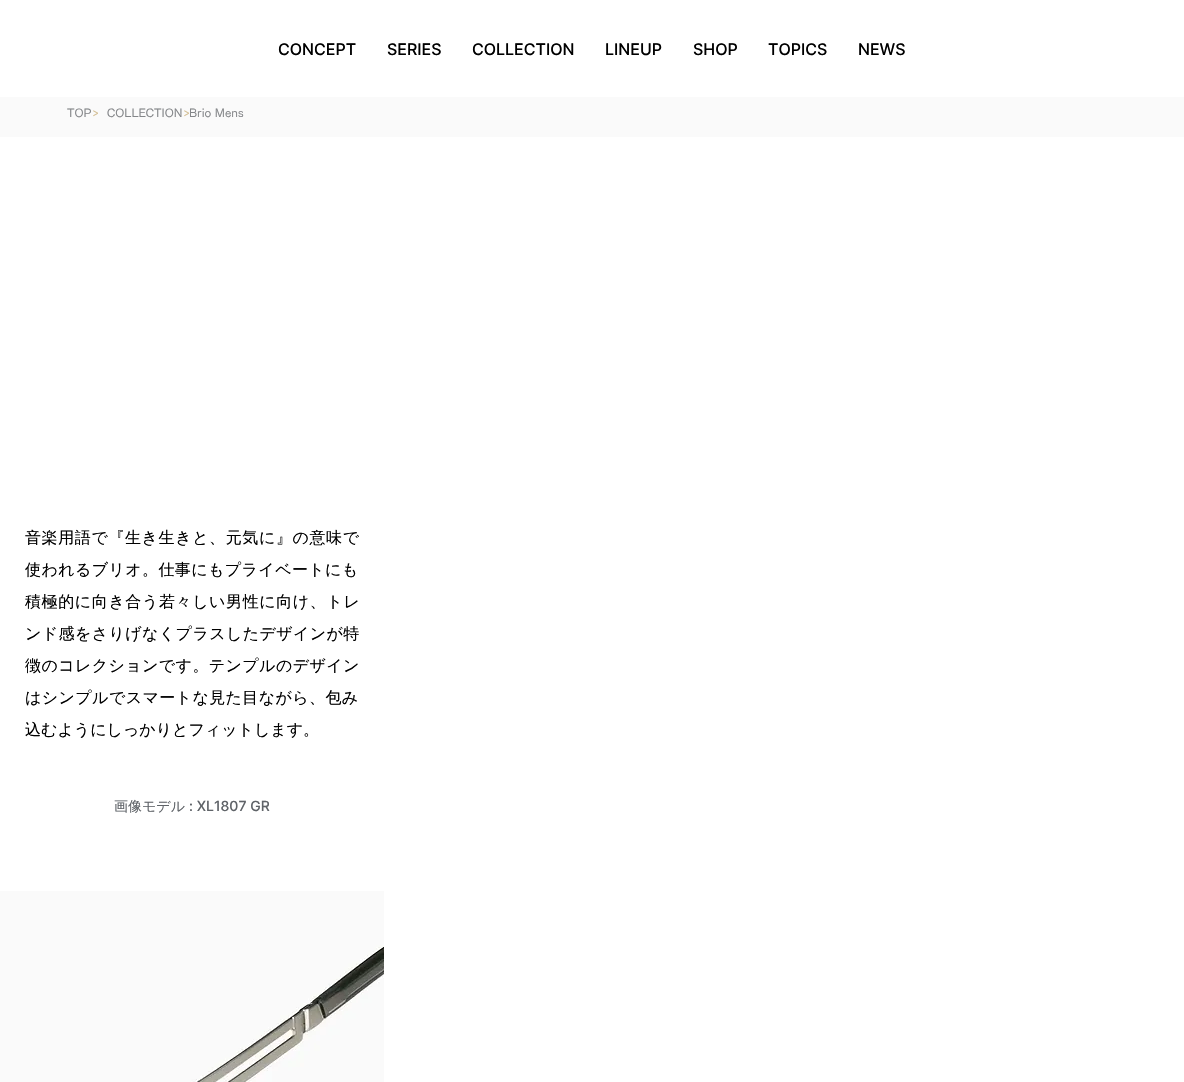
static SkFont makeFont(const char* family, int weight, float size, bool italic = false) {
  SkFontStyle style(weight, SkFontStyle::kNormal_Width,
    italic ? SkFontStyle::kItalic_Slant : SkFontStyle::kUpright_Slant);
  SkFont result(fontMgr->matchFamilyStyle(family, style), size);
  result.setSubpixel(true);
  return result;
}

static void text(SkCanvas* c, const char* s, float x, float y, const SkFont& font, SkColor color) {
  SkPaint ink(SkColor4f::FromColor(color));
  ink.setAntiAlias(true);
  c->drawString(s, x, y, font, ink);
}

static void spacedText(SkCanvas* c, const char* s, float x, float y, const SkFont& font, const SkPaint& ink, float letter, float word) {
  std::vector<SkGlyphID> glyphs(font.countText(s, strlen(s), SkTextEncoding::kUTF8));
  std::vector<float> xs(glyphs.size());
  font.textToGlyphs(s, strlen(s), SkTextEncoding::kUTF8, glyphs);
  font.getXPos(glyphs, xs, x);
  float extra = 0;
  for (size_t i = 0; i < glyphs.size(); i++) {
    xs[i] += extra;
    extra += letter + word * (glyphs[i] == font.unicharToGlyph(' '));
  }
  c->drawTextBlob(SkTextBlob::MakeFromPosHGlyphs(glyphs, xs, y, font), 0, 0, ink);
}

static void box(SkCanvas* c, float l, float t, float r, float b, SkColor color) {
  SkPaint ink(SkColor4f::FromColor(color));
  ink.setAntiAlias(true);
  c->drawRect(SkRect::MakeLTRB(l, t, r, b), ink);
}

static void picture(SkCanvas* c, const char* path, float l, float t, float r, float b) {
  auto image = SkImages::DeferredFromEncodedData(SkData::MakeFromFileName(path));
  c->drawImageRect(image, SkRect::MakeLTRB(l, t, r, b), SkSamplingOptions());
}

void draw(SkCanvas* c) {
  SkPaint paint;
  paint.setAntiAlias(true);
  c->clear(0xffffffff);
  SkFont face1 = makeFont("Inter", 500, 16);
  text(c, "CONCEPT", 278, 55, face1, 0xff000000);
  text(c, "SERIES", 387, 55, face1, 0xff000000);
  text(c, "COLLECTION", 472, 55, face1, 0xff000000);
  text(c, "LINEUP", 605, 55, face1, 0xff000000);
  text(c, "SHOP", 693, 55, face1, 0xff000000);
  text(c, "TOPICS", 768, 55, face1, 0xff000000);
  text(c, "NEWS", 858, 55, face1, 0xff000000);
  box(c, 0, 97, 1184, 137, 0xfffafafa);
  SkFont face2 = makeFont("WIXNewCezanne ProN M", 500, 11);
  text(c, "TOP", 67, 117, face2, 0xff848689);
  SkFont face3 = makeFont("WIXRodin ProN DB", 600, 10);
  text(c, ">", 92, 116, face3, 0xffd4bf94);
  text(c, "COLLECTION", 107, 117, face2, 0xff848689);
  text(c, ">", 183, 116, face3, 0xffd4bf94);
  text(c, "Brio Mens", 189, 117, face2, 0xff848689);
  SkFont face4 = makeFont("WenQuanYi Zen Hei", 500, 16);
  paint.setColor(0xff000000);
  spacedText(c, "音楽用語で『生き生きと、元気に』の意味で", 25, 543, face4, paint, 0.6f, 0);
  spacedText(c, "使われるブリオ。仕事にもプライベートにも", 25, 575, face4, paint, 0.4f, 0);
  spacedText(c, "積極的に向き合う若々しい男性に向け、トレ", 25, 607, face4, paint, 0.6f, 0);
  spacedText(c, "ンド感をさりげなくプラスしたデザインが特", 25, 639, face4, paint, 0.4f, 0);
  spacedText(c, "徴のコレクションです。テンプルのデザイン", 25, 671, face4, paint, 0.4f, 0);
  spacedText(c, "はシンプルでスマートな見た目ながら、包み", 25, 703, face4, paint, 0.4f, 0);
  text(c, "込むようにしっかりとフィットします。", 25, 735, face4, 0xff000000);
  SkFont face5 = makeFont("WenQuanYi Zen Hei", 500, 14);
  text(c, "画像モデル", 114, 811, face5, 0xff5f6368);
  SkFont face6 = makeFont("Inter", 500, 14);
  text(c, ": XL1807 GR", 189, 811, face6, 0xff5f6368);
  picture(c, "img_01.png", 0, 891, 384, 1082);
}
